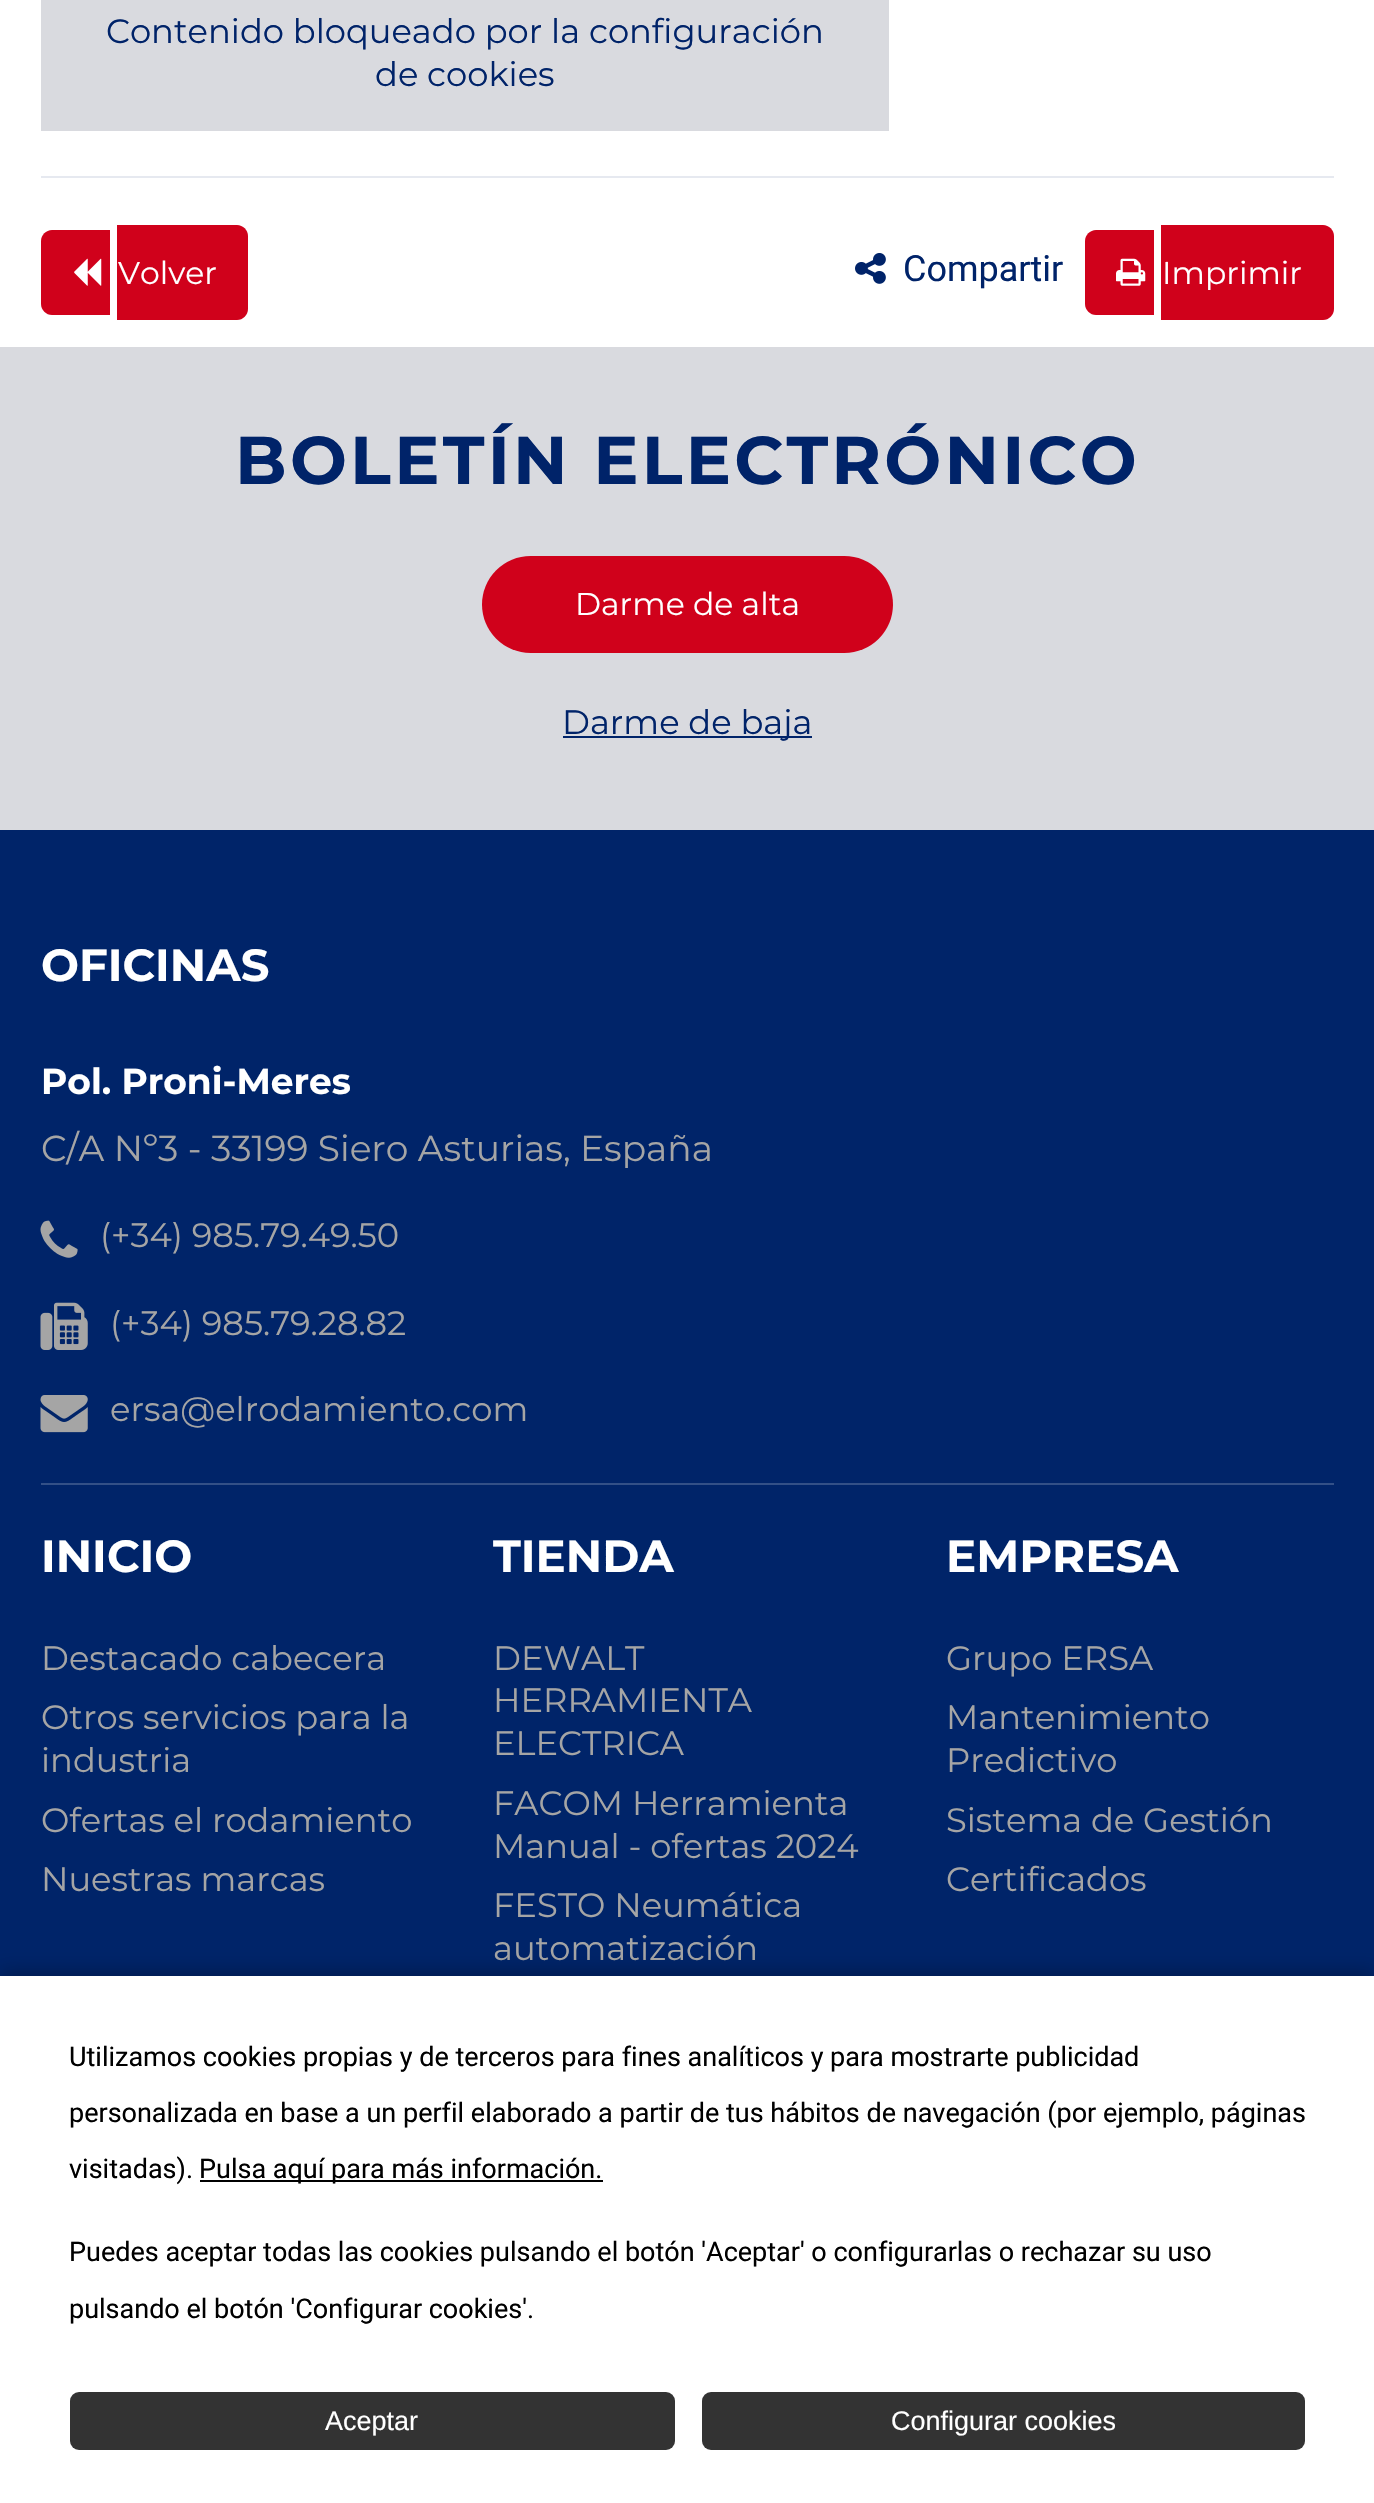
static SkFont makeFont(const char* family, int weight, float size, bool italic = false) {
  SkFontStyle style(weight, SkFontStyle::kNormal_Width,
    italic ? SkFontStyle::kItalic_Slant : SkFontStyle::kUpright_Slant);
  SkFont result(fontMgr->matchFamilyStyle(family, style), size);
  result.setSubpixel(true);
  return result;
}

static void text(SkCanvas* c, const char* s, float x, float y, const SkFont& font, SkColor color) {
  SkPaint ink(SkColor4f::FromColor(color));
  ink.setAntiAlias(true);
  c->drawString(s, x, y, font, ink);
}

static void spacedText(SkCanvas* c, const char* s, float x, float y, const SkFont& font, const SkPaint& ink, float letter, float word) {
  std::vector<SkGlyphID> glyphs(font.countText(s, strlen(s), SkTextEncoding::kUTF8));
  std::vector<float> xs(glyphs.size());
  font.textToGlyphs(s, strlen(s), SkTextEncoding::kUTF8, glyphs);
  font.getXPos(glyphs, xs, x);
  float extra = 0;
  for (size_t i = 0; i < glyphs.size(); i++) {
    xs[i] += extra;
    extra += letter + word * (glyphs[i] == font.unicharToGlyph(' '));
  }
  c->drawTextBlob(SkTextBlob::MakeFromPosHGlyphs(glyphs, xs, y, font), 0, 0, ink);
}

static void box(SkCanvas* c, float l, float t, float r, float b, SkColor color) {
  SkPaint ink(SkColor4f::FromColor(color));
  ink.setAntiAlias(true);
  c->drawRect(SkRect::MakeLTRB(l, t, r, b), ink);
}

static void roundBox(SkCanvas* c, float l, float t, float r, float b, float radius, SkColor color) {
  SkPaint ink(SkColor4f::FromColor(color));
  ink.setAntiAlias(true);
  c->drawRoundRect(SkRect::MakeLTRB(l, t, r, b), radius, radius, ink);
}

static void picture(SkCanvas* c, const char* path, float l, float t, float r, float b) {
  auto image = SkImages::DeferredFromEncodedData(SkData::MakeFromFileName(path));
  c->drawImageRect(image, SkRect::MakeLTRB(l, t, r, b), SkSamplingOptions());
}

void draw(SkCanvas* c) {
  SkPaint paint;
  paint.setAntiAlias(true);
  c->clear(0xffffffff);
  box(c, 41, 0, 889, 131, 0xffd9dadf);
  SkFont face1 = makeFont("Montserrat", 400, 33.75f);
  text(c, "Contenido bloqueado por la configuración", 106, 43, face1, 0xff002369);
  text(c, "de cookies", 375, 86, face1, 0xff002369);
  box(c, 41, 176, 1334, 178, 0xffe6e9f0);
  paint.setColor(0xffd0011b);
  c->drawPath(SkPathBuilder().moveTo(52, 230).lineTo(110, 230).lineTo(110, 315).lineTo(52, 315).cubicTo(46, 315, 41, 310, 41, 304).lineTo(41, 241).cubicTo(41, 235, 46, 230, 52, 230).close().detach(), paint);
  c->drawPath(SkPathBuilder().moveTo(117, 225).lineTo(237, 225).cubicTo(243, 225, 248, 230, 248, 236).lineTo(248, 309).cubicTo(248, 315, 243, 320, 237, 320).lineTo(117, 320).close().detach(), paint);
  picture(c, "img_01.png", 74, 258, 102, 286);
  SkFont face2 = makeFont("Montserrat", 400, 31.5f);
  text(c, "Volver", 118, 284, face2, 0xffffffff);
  picture(c, "img_02.png", 855, 253, 886, 284);
  SkFont face3 = makeFont("Roboto", 400, 36);
  text(c, "Compartir", 903, 281, face3, 0xff002369);
  c->drawPath(SkPathBuilder().moveTo(1096, 230).lineTo(1154, 230).lineTo(1154, 315).lineTo(1096, 315).cubicTo(1090, 315, 1085, 310, 1085, 304).lineTo(1085, 241).cubicTo(1085, 235, 1090, 230, 1096, 230).close().detach(), paint);
  c->drawPath(SkPathBuilder().moveTo(1161, 225).lineTo(1323, 225).cubicTo(1329, 225, 1334, 230, 1334, 236).lineTo(1334, 309).cubicTo(1334, 315, 1329, 320, 1323, 320).lineTo(1161, 320).close().detach(), paint);
  picture(c, "img_03.png", 1116, 258, 1146, 286);
  text(c, "Imprimir", 1162, 284, face2, 0xffffffff);
  box(c, 0, 347, 1374, 830, 0xffd9dadf);
  SkFont face4 = makeFont("Montserrat", 700, 67.5f);
  paint.setColor(0xff002369);
  spacedText(c, "BOLETÍN ELECTRÓNICO", 235, 484, face4, paint, 3.25f, 0);
  roundBox(c, 482, 556, 893, 653, 48.5f, 0xffd0011b);
  text(c, "Darme de alta", 575, 615, face2, 0xffffffff);
  box(c, 563, 736, 812, 738, 0xff002369);
  text(c, "Darme de baja", 562, 734, face1, 0xff002369);
  box(c, 0, 830, 1374, 1976, 0xff002469);
  box(c, 41, 1483, 1334, 1485, 0xff335087);
  SkFont face5 = makeFont("Montserrat", 700, 45);
  text(c, "OFICINAS", 41, 981, face5, 0xffffffff);
  SkFont face6 = makeFont("Montserrat", 700, 36);
  text(c, "Pol. Proni-Meres", 41, 1094, face6, 0xffffffff);
  SkFont face7 = makeFont("Montserrat", 400, 36);
  text(c, "C/A Nº3 - 33199 Siero Asturias, España", 41, 1161, face7, 0xffa5a5a5);
  picture(c, "img_04.png", 40, 1220, 78, 1258);
  text(c, "(+34) 985.79.49.50", 100, 1247, face1, 0xffa5a5a5);
  picture(c, "img_05.png", 40, 1302, 88, 1350);
  text(c, "(+34) 985.79.28.82", 110, 1335, face1, 0xffa5a5a5);
  picture(c, "img_06.png", 40, 1395, 88, 1433);
  text(c, "ersa@elrodamiento.com", 110, 1421, face1, 0xffa5a5a5);
  text(c, "INICIO", 41, 1572, face5, 0xffffffff);
  text(c, "Destacado cabecera", 41, 1670, face1, 0xffa5a5a5);
  text(c, "Otros servicios para la", 41, 1729, face1, 0xffa5a5a5);
  text(c, "industria", 41, 1772, face1, 0xffa5a5a5);
  text(c, "Ofertas el rodamiento", 41, 1832, face1, 0xffa5a5a5);
  text(c, "Nuestras marcas", 41, 1891, face1, 0xffa5a5a5);
  text(c, "TIENDA", 493, 1572, face5, 0xffffffff);
  text(c, "DEWALT", 493, 1670, face1, 0xffa5a5a5);
  text(c, "HERRAMIENTA", 493, 1712, face1, 0xffa5a5a5);
  text(c, "ELECTRICA", 493, 1755, face1, 0xffa5a5a5);
  text(c, "FACOM Herramienta", 493, 1815, face1, 0xffa5a5a5);
  text(c, "Manual - ofertas 2024", 493, 1858, face1, 0xffa5a5a5);
  text(c, "FESTO Neumática", 493, 1917, face1, 0xffa5a5a5);
  text(c, "automatización", 493, 1960, face1, 0xffa5a5a5);
  text(c, "EMPRESA", 946, 1572, face5, 0xffffffff);
  text(c, "Grupo ERSA", 946, 1670, face1, 0xffa5a5a5);
  text(c, "Mantenimiento", 946, 1729, face1, 0xffa5a5a5);
  text(c, "Predictivo", 946, 1772, face1, 0xffa5a5a5);
  text(c, "Sistema de Gestión", 946, 1832, face1, 0xffa5a5a5);
  text(c, "Certificados", 946, 1891, face1, 0xffa5a5a5);
  paint.setColor(0x40000000);
  paint.setMaskFilter(SkMaskFilter::MakeBlur(kNormal_SkBlurStyle, 9));
  c->drawRect(SkRect::MakeLTRB(0, 1971, 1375, 2500), paint);
  paint.setMaskFilter(nullptr);
  box(c, 0, 1976, 1374, 2503, 0xffffffff);
  SkFont face8 = makeFont("Roboto", 400, 27);
  text(c, "Utilizamos cookies propias y de terceros para fines analíticos y para mostrarte publicidad", 69, 2066, face8, 0xff000000);
  text(c, "personalizada en base a un perfil elaborado a partir de tus hábitos de navegación (por ejemplo, páginas", 69, 2122, face8, 0xff000000);
  text(c, "visitadas).", 69, 2178, face8, 0xff000000);
  box(c, 200, 2180, 603, 2182, 0xff000000);
  text(c, "Pulsa aquí para más información.", 199, 2178, face8, 0xff000000);
  text(c, "Puedes aceptar todas las cookies pulsando el botón 'Aceptar' o configurarlas o rechazar su uso", 69, 2261, face8, 0xff000000);
  text(c, "pulsando el botón 'Configurar cookies'.", 69, 2318, face8, 0xff000000);
  roundBox(c, 70, 2392, 675, 2450, 9, 0xff333333);
  SkFont face9 = makeFont("Liberation Sans", 400, 27);
  text(c, "Aceptar", 325, 2430, face9, 0xffffffff);
  roundBox(c, 702, 2392, 1305, 2450, 9, 0xff333333);
  text(c, "Configurar cookies", 891, 2430, face9, 0xffffffff);
}
